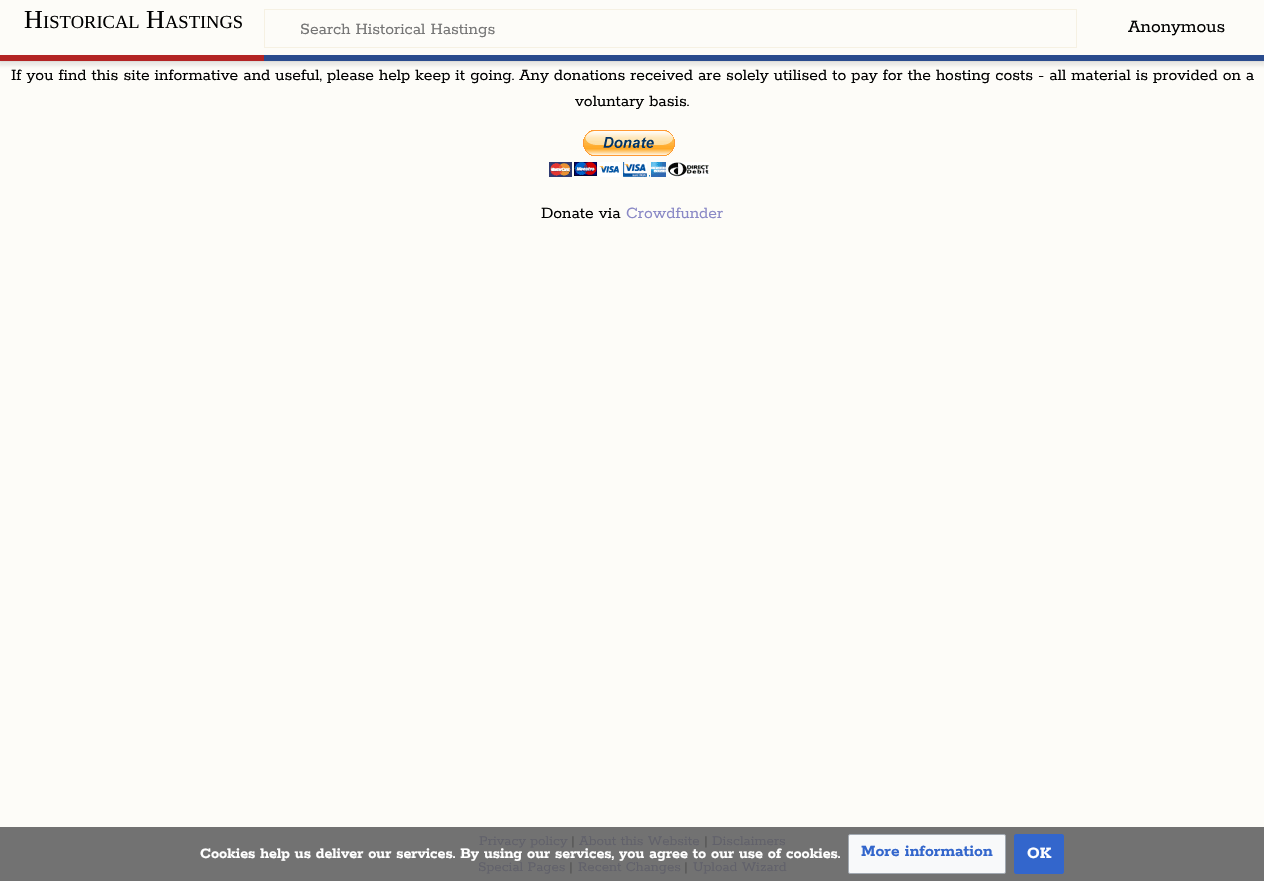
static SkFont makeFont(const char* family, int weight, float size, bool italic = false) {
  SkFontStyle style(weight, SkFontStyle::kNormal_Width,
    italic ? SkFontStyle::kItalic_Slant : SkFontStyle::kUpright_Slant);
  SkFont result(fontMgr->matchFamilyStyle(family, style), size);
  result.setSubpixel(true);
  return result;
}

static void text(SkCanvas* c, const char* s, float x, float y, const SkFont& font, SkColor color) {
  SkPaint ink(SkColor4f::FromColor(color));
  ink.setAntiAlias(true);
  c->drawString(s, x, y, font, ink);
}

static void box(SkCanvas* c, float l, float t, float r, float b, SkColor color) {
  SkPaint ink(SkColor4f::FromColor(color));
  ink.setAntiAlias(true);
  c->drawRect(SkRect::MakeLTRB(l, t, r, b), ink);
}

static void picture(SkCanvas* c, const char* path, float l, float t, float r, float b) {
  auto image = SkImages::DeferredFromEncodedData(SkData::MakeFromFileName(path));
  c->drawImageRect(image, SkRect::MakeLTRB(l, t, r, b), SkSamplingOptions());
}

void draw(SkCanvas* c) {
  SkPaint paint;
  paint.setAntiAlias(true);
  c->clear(0xfffdfcf8);
  box(c, 0, 827, 1264, 881, 0xff727272);
  paint.setColor(0x33000000);
  paint.setMaskFilter(SkMaskFilter::MakeBlur(kNormal_SkBlurStyle, 1));
  c->drawRect(SkRect::MakeLTRB(0, 55, 1264, 61), paint);
  paint.setMaskFilter(nullptr);
  paint.setColor(0x12000000);
  paint.setMaskFilter(SkMaskFilter::MakeBlur(kNormal_SkBlurStyle, 1.5f));
  c->drawRect(SkRect::MakeLTRB(-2, 56, 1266, 66), paint);
  paint.setMaskFilter(nullptr);
  box(c, 0, 53, 1264, 55, 0xfffdfcf8);
  SkFont face1 = makeFont("Liberation Serif", 400, 26);
  text(c, "H", 24, 28, face1, 0xff000000);
  SkFont face2 = makeFont("Liberation Serif", 400, 18.5f);
  text(c, "ISTORICAL", 43, 28, face2, 0xff000000);
  text(c, "H", 146, 28, face1, 0xff000000);
  text(c, "ASTINGS", 165, 28, face2, 0xff000000);
  paint.setStyle(SkPaint::kStroke_Style);
  paint.setStrokeWidth(1);
  paint.setColor(0xfff6f1e3);
  c->drawRect(SkRect::MakeLTRB(264.5f, 9.5f, 1076.5f, 47.5f), paint);
  SkFont face3 = makeFont("Rokkitt", 400, 17.6f);
  text(c, "Search Historical Hastings", 300, 34, face3, 0xff757575);
  SkFont face4 = makeFont("Rokkitt", 400, 19.5f);
  text(c, "Anonymous", 1128, 32, face4, 0xff000000);
  box(c, 0, 55, 264, 61, 0xffb32424);
  box(c, 264, 55, 1264, 61, 0xff2a4b8d);
  SkFont face5 = makeFont("Rokkitt", 700, 16.2f);
  text(c, "Cookies help us deliver our services. By using our services, you agree to our use of cookies.", 200, 858, face5, 0xffffffff);
  paint.setStyle(SkPaint::kFill_Style);
  paint.setColor(0xfff8f9fa);
  c->drawRoundRect(SkRect::MakeLTRB(848.5f, 834.5f, 1005.5f, 873.5f), 1.5f, 1.5f, paint);
  paint.setStyle(SkPaint::kStroke_Style);
  paint.setColor(0xffa2a9b1);
  c->drawRoundRect(SkRect::MakeLTRB(848.5f, 834.5f, 1005.5f, 873.5f), 1.5f, 1.5f, paint);
  SkFont face6 = makeFont("Rokkitt", 700, 17.6f);
  text(c, "More information", 861, 856, face6, 0xff3366cc);
  paint.setStyle(SkPaint::kFill_Style);
  paint.setColor(0xff3366cc);
  c->drawRoundRect(SkRect::MakeLTRB(1014.5f, 834.5f, 1063.5f, 873.5f), 1.5f, 1.5f, paint);
  paint.setStyle(SkPaint::kStroke_Style);
  c->drawRoundRect(SkRect::MakeLTRB(1014.5f, 834.5f, 1063.5f, 873.5f), 1.5f, 1.5f, paint);
  text(c, "OK", 1027, 858, face6, 0xffffffff);
  text(c, "If you find this site informative and useful, please help keep it going. Any donations received are solely utilised to pay for the hosting costs - all material is provided on a", 11, 80, face3, 0xff000000);
  text(c, "voluntary basis.", 575, 106, face3, 0xff000000);
  picture(c, "img_01.png", 549, 130, 709, 177);
  text(c, "Donate via", 541, 218, face3, 0xff000000);
  text(c, "Crowdfunder", 626, 218, face3, 0xff8a89c6);
  SkFont face7 = makeFont("Rokkitt", 400, 15);
  text(c, "Privacy policy", 479, 845, face7, 0xff61616a);
  text(c, "|", 571, 845, face7, 0xff4d4d4d);
  text(c, "About this Website", 579, 845, face7, 0xff61616a);
  text(c, "|", 704, 845, face7, 0xff4d4d4d);
  text(c, "Disclaimers", 712, 845, face7, 0xff61616a);
  text(c, "Special Pages", 478, 871, face7, 0xff61616a);
  text(c, "|", 569, 871, face7, 0xff4d4d4d);
  text(c, "Recent Changes", 578, 871, face7, 0xff61616a);
  text(c, "|", 684, 871, face7, 0xff4d4d4d);
  text(c, "Upload Wizard", 693, 871, face7, 0xff61616a);
}
